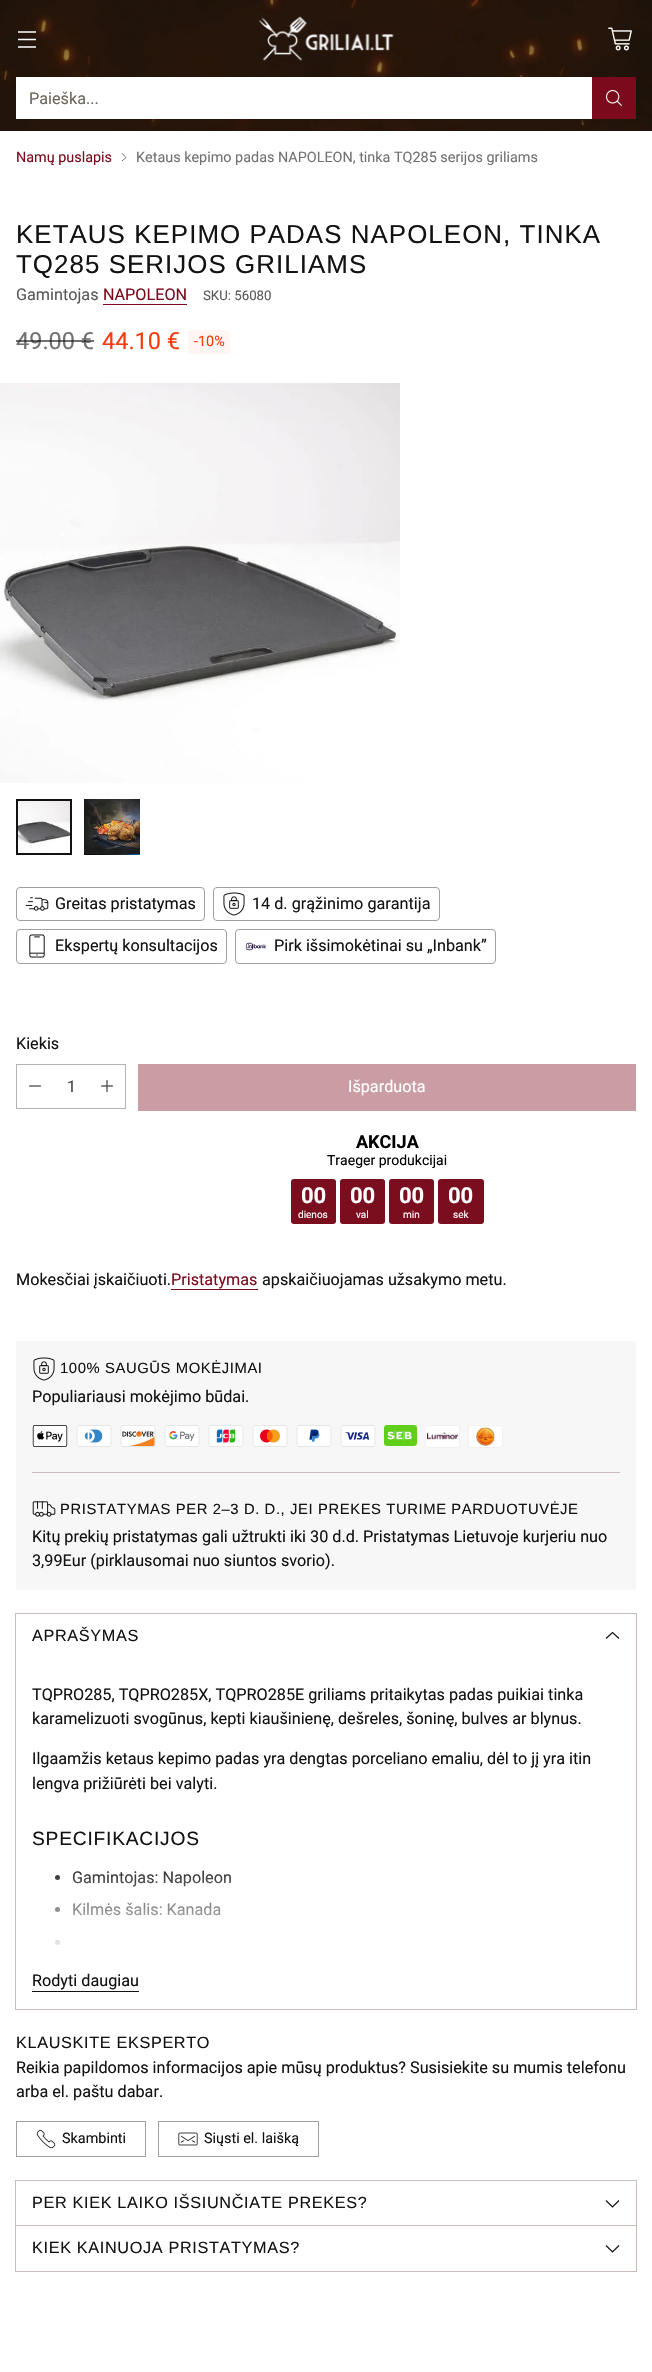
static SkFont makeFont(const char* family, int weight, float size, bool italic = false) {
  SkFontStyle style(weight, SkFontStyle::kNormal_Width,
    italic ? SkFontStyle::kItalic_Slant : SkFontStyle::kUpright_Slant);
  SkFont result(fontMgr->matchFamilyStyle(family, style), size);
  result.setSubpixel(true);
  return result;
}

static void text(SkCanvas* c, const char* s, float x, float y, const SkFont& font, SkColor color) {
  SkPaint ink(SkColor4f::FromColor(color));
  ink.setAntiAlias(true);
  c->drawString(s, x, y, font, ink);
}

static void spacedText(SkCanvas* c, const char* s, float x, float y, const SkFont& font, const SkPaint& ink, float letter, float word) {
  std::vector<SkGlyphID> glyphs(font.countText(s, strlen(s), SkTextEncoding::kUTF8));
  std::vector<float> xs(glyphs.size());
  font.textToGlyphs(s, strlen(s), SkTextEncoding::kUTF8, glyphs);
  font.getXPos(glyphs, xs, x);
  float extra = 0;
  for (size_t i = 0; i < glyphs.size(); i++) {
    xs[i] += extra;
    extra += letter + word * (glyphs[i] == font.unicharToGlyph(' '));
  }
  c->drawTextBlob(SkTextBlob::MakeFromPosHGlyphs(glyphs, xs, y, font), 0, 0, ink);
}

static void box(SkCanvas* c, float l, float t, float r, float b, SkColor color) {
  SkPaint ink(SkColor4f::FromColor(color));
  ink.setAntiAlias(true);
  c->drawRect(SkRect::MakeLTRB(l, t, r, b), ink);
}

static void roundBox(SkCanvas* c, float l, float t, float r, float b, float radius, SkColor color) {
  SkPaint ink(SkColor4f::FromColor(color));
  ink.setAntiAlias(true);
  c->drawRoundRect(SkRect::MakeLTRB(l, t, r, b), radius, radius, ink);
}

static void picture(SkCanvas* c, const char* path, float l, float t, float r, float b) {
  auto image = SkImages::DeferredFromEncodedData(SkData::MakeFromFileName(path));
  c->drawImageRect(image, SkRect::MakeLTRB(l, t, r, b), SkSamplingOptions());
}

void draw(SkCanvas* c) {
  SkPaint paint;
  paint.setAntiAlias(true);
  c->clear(0xffffffff);
  picture(c, "img_01.png", 0, 0, 652, 131);
  paint.setStyle(SkPaint::kStroke_Style);
  paint.setStrokeWidth(1.3f);
  paint.setColor(0xffffffff);
  c->drawPath(SkPathBuilder().moveTo(18, 39.5f).lineTo(36, 39.5f).moveTo(18, 32).lineTo(36, 32).moveTo(18, 47).lineTo(36, 47).detach(), paint);
  picture(c, "img_02.png", 258, 16, 394, 61);
  picture(c, "img_03.png", 608, 27, 632, 51);
  box(c, 16, 77, 592, 119, 0xffffffff);
  SkFont face1 = makeFont("Roboto", 400, 16.2f);
  text(c, "Paieška...", 29, 104, face1, 0xff6d665b);
  box(c, 592, 77, 636, 119, 0xff7b0b1c);
  picture(c, "img_04.png", 606, 90, 622, 106);
  SkFont face2 = makeFont("Roboto", 400, 14.4f);
  text(c, "Namų puslapis", 16, 162, face2, 0xff7b0b1c);
  paint.setStrokeWidth(1);
  paint.setColor(0xff717171);
  c->drawPath(SkPathBuilder().moveTo(122, 161).lineTo(126, 157.5f).lineTo(122, 153.5f).detach(), paint);
  text(c, "Ketaus kepimo padas NAPOLEON, tinka TQ285 serijos griliams", 136, 162, face2, 0xff717171);
  SkFont face3 = makeFont("Liberation Sans", 400, 25.9f);
  paint.setStyle(SkPaint::kFill_Style);
  paint.setColor(0xff121212);
  spacedText(c, "KETAUS KEPIMO PADAS NAPOLEON, TINKA", 16, 243, face3, paint, 1.05f, 0);
  spacedText(c, "TQ285 SERIJOS GRILIAMS", 16, 273, face3, paint, 1.05f, 0);
  text(c, "Gamintojas", 16, 300, face1, 0xff595959);
  text(c, "NAPOLEON", 103, 300, face1, 0xff7b0b1c);
  box(c, 103, 304, 187, 305, 0xff7b0b1c);
  SkFont face4 = makeFont("Roboto", 400, 13.25f);
  text(c, "SKU: 56080", 203, 300, face4, 0xff595959);
  SkFont face5 = makeFont("Roboto", 400, 23.5f);
  text(c, "49.00 €", 16, 349, face5, 0xff717171);
  box(c, 16, 340, 94, 342, 0x99121212);
  text(c, "44.10 €", 102, 349, face5, 0xfff63b0c);
  roundBox(c, 188, 330, 230, 354, 4, 0xfffff5f3);
  text(c, "-10%", 194, 346, face2, 0xfff63b0c);
  picture(c, "img_05.png", 0, 383, 400, 783);
  picture(c, "img_06.png", 18, 801, 70, 853);
  paint.setStyle(SkPaint::kStroke_Style);
  paint.setStrokeWidth(2);
  c->drawRect(SkRect::MakeLTRB(17, 800, 71, 854), paint);
  picture(c, "img_07.png", 84, 799, 140, 855);
  paint.setStrokeWidth(1);
  paint.setColor(0xffa0a0a0);
  c->drawRoundRect(SkRect::MakeLTRB(16.5f, 887.5f, 204.5f, 920.5f), 3.5f, 3.5f, paint);
  picture(c, "img_08.png", 25, 897, 49, 911);
  text(c, "Greitas pristatymas", 55, 909, face1, 0xff121212);
  c->drawRoundRect(SkRect::MakeLTRB(213.5f, 887.5f, 439.5f, 920.5f), 3.5f, 3.5f, paint);
  picture(c, "img_09.png", 223, 892, 245, 916);
  text(c, "14 d. grąžinimo garantija", 252, 909, face1, 0xff121212);
  c->drawRoundRect(SkRect::MakeLTRB(16.5f, 929.5f, 226.5f, 963.5f), 3.5f, 3.5f, paint);
  picture(c, "img_10.png", 29, 934, 45, 958);
  text(c, "Ekspertų konsultacijos", 55, 951, face1, 0xff121212);
  c->drawRoundRect(SkRect::MakeLTRB(235.5f, 929.5f, 495.5f, 963.5f), 3.5f, 3.5f, paint);
  picture(c, "img_11.png", 245, 942, 267, 951);
  text(c, "Pirk išsimokėtinai su „Inbank”", 274, 951, face1, 0xff121212);
  text(c, "Kiekis", 16, 1049, face1, 0xff121212);
  paint.setColor(0xffb4b4b4);
  c->drawRect(SkRect::MakeLTRB(16.5f, 1064.5f, 125.5f, 1108.5f), paint);
  picture(c, "img_12.png", 29, 1085, 41, 1087);
  SkFont face6 = makeFont("Roboto", 400, 16);
  text(c, "1", 67, 1092, face6, 0xff444444);
  picture(c, "img_13.png", 101, 1080, 113, 1092);
  box(c, 138, 1064, 636, 1111, 0xffca9da4);
  text(c, "Išparduota", 348, 1092, face1, 0xffffffff);
  SkFont face7 = makeFont("Roboto", 700, 18);
  text(c, "AKCIJA", 356, 1148, face7, 0xff000000);
  SkFont face8 = makeFont("Roboto", 400, 14);
  text(c, "Traeger produkcijai", 327, 1165, face8, 0xff000000);
  roundBox(c, 291, 1179, 336, 1224, 3, 0xff7a0e1e);
  SkFont face9 = makeFont("Roboto", 700, 22);
  text(c, "00", 301, 1203, face9, 0xffffffff);
  SkFont face10 = makeFont("Roboto", 400, 10);
  text(c, "dienos", 298, 1218, face10, 0xffffffff);
  roundBox(c, 340, 1179, 385, 1224, 3, 0xff7a0e1e);
  text(c, "00", 350, 1203, face9, 0xffffffff);
  text(c, "val", 356, 1218, face10, 0xffffffff);
  roundBox(c, 389, 1179, 434, 1224, 3, 0xff7a0e1e);
  text(c, "00", 399, 1203, face9, 0xffffffff);
  text(c, "min", 403, 1218, face10, 0xffffffff);
  roundBox(c, 438, 1179, 484, 1224, 3, 0xff7a0e1e);
  text(c, "00", 448, 1203, face9, 0xffffffff);
  text(c, "sek", 453, 1218, face10, 0xffffffff);
  text(c, "Mokesčiai įskaičiuoti.", 16, 1285, face1, 0xff121212);
  text(c, "Pristatymas", 171, 1285, face1, 0xff7b0b1c);
  box(c, 171, 1289, 258, 1290, 0xff7b0b1c);
  text(c, "apskaičiuojamas užsakymo metu.", 262, 1285, face1, 0xff121212);
  box(c, 16, 1341, 636, 1590, 0xfff7f7f7);
  picture(c, "img_14.png", 33, 1357, 55, 1381);
  SkFont face11 = makeFont("Liberation Sans", 400, 14.8f);
  paint.setStyle(SkPaint::kFill_Style);
  paint.setColor(0xff121212);
  spacedText(c, "100% SAUGŪS MOKĖJIMAI", 60, 1373, face11, paint, 0.6f, 0);
  text(c, "Populiariausi mokėjimo būdai.", 32, 1402, face1, 0xff121212);
  picture(c, "img_15.png", 32, 1425, 68, 1447);
  picture(c, "img_16.png", 76, 1425, 112, 1447);
  picture(c, "img_17.png", 120, 1425, 156, 1447);
  picture(c, "img_18.png", 164, 1425, 200, 1447);
  picture(c, "img_19.png", 208, 1425, 244, 1447);
  picture(c, "img_20.png", 252, 1425, 288, 1447);
  picture(c, "img_21.png", 296, 1425, 332, 1447);
  picture(c, "img_22.png", 340, 1425, 376, 1447);
  picture(c, "img_23.png", 384, 1425, 417, 1446);
  paint.setStyle(SkPaint::kStroke_Style);
  paint.setColor(0xfff1f1f1);
  c->drawRoundRect(SkRect::MakeLTRB(425.5f, 1425.5f, 459.5f, 1447.5f), 2.5f, 2.5f, paint);
  picture(c, "img_24.png", 426, 1426, 459, 1447);
  c->drawRoundRect(SkRect::MakeLTRB(468.5f, 1425.5f, 502.5f, 1447.5f), 2.5f, 2.5f, paint);
  picture(c, "img_25.png", 469, 1426, 502, 1447);
  box(c, 32, 1472, 620, 1473, 0xffc6bcb9);
  picture(c, "img_26.png", 32, 1501, 56, 1517);
  paint.setStyle(SkPaint::kFill_Style);
  paint.setColor(0xff121212);
  spacedText(c, "PRISTATYMAS PER 2–3 D. D., JEI PREKES TURIME PARDUOTUVĖJE", 60, 1514, face11, paint, 0.6f, 0);
  text(c, "Kitų prekių pristatymas gali užtrukti iki 30 d.d. Pristatymas Lietuvoje kurjeriu nuo", 32, 1542, face1, 0xff121212);
  text(c, "3,99Eur (pirklausomai nuo siuntos svorio).", 32, 1566, face1, 0xff121212);
  paint.setStyle(SkPaint::kStroke_Style);
  paint.setColor(0xffc6bcb9);
  c->drawRect(SkRect::MakeLTRB(15.5f, 1613.5f, 636.5f, 2009.5f), paint);
  SkFont face12 = makeFont("Liberation Sans", 400, 16.25f);
  paint.setStyle(SkPaint::kFill_Style);
  paint.setColor(0xff121212);
  spacedText(c, "APRAŠYMAS", 32, 1641, face12, paint, 0.65f, 0);
  paint.setStyle(SkPaint::kStroke_Style);
  paint.setStrokeWidth(1.2f);
  c->drawPath(SkPathBuilder().moveTo(606, 1638.5f).lineTo(612.5f, 1632.5f).lineTo(619, 1638.5f).detach(), paint);
  text(c, "TQPRO285, TQPRO285X, TQPRO285E griliams pritaikytas padas puikiai tinka", 32, 1700, face1, 0xff121212);
  text(c, "karamelizuoti svogūnus, kepti kiaušinienę, dešreles, šoninę, bulves ar blynus.", 32, 1724, face1, 0xff121212);
  text(c, "Ilgaamžis ketaus kepimo padas yra dengtas porceliano emaliu, dėl to jį yra itin", 32, 1764, face1, 0xff121212);
  text(c, "lengva prižiūrėti bei valyti.", 32, 1789, face1, 0xff121212);
  SkFont face13 = makeFont("Liberation Sans", 400, 19.25f);
  paint.setStyle(SkPaint::kFill_Style);
  spacedText(c, "SPECIFIKACIJOS", 32, 1845, face13, paint, 0.75f, 0);
  c->drawCircle(57.5f, 1877.5f, 2.5f, paint);
  text(c, "Gamintojas: Napoleon", 72, 1883, face1, 0xff121212);
  c->drawCircle(57.5f, 1909.5f, 2.5f, paint);
  text(c, "Kilmės šalis: Kanada", 72, 1915, face1, 0xff121212);
  c->drawCircle(57.5f, 1942.5f, 2.5f, paint);
  {
    const SkColor colors[] = {0xffffffff, 0x00ffffff};
    const float stops[] = {0, 1};
    const SkPoint ends[] = {{326, 1955}, {326, 1859}};
    paint.setShader(SkGradientShader::MakeLinear(ends, colors, stops, 2, SkTileMode::kClamp));
    paint.setAlpha(255);
  }
  c->drawRect(SkRect::MakeLTRB(55, 1870, 231, 1945), paint);
  text(c, "Rodyti daugiau", 32, 1986, face1, 0xff121212);
  box(c, 32, 1991, 139, 1992, 0xff121212);
  paint.setShader(nullptr);
  paint.setColor(0xff121212);
  spacedText(c, "KLAUSKITE EKSPERTO", 16, 2048, face12, paint, 0.65f, 0);
  text(c, "Reikia papildomos informacijos apie mūsų produktus? Susisiekite su mumis telefonu", 16, 2073, face1, 0xff121212);
  text(c, "arba el. paštu dabar.", 16, 2097, face1, 0xff121212);
  paint.setStyle(SkPaint::kStroke_Style);
  paint.setStrokeWidth(1);
  paint.setColor(0xffa0a0a0);
  c->drawRect(SkRect::MakeLTRB(16.5f, 2121.5f, 145.5f, 2156.5f), paint);
  picture(c, "img_27.png", 36, 2129, 56, 2149);
  text(c, "Skambinti", 62, 2143, face2, 0xff121212);
  c->drawRect(SkRect::MakeLTRB(158.5f, 2121.5f, 318.5f, 2156.5f), paint);
  picture(c, "img_28.png", 178, 2132, 198, 2146);
  text(c, "Siųsti el. laišką", 204, 2143, face2, 0xff121212);
  paint.setColor(0xffc6bcb9);
  c->drawRect(SkRect::MakeLTRB(15.5f, 2180.5f, 636.5f, 2226.5f), paint);
  paint.setStyle(SkPaint::kFill_Style);
  paint.setColor(0xff121212);
  spacedText(c, "PER KIEK LAIKO IŠSIUNČIATE PREKES?", 32, 2208, face12, paint, 0.65f, 0);
  paint.setStyle(SkPaint::kStroke_Style);
  paint.setColor(0xffc6bcb9);
  c->drawRect(SkRect::MakeLTRB(15.5f, 2225.5f, 636.5f, 2271.5f), paint);
  box(c, 16, 2226, 636, 2227, 0xffffffff);
  paint.setStrokeWidth(1.2f);
  paint.setColor(0xff121212);
  c->drawPath(SkPathBuilder().moveTo(606, 2200.5f).lineTo(612.5f, 2207).lineTo(619, 2200.5f).moveTo(606, 2245.5f).lineTo(612.5f, 2252).lineTo(619, 2245.5f).detach(), paint);
  paint.setStyle(SkPaint::kFill_Style);
  spacedText(c, "KIEK KAINUOJA PRISTATYMAS?", 32, 2253, face12, paint, 0.65f, 0);
}
